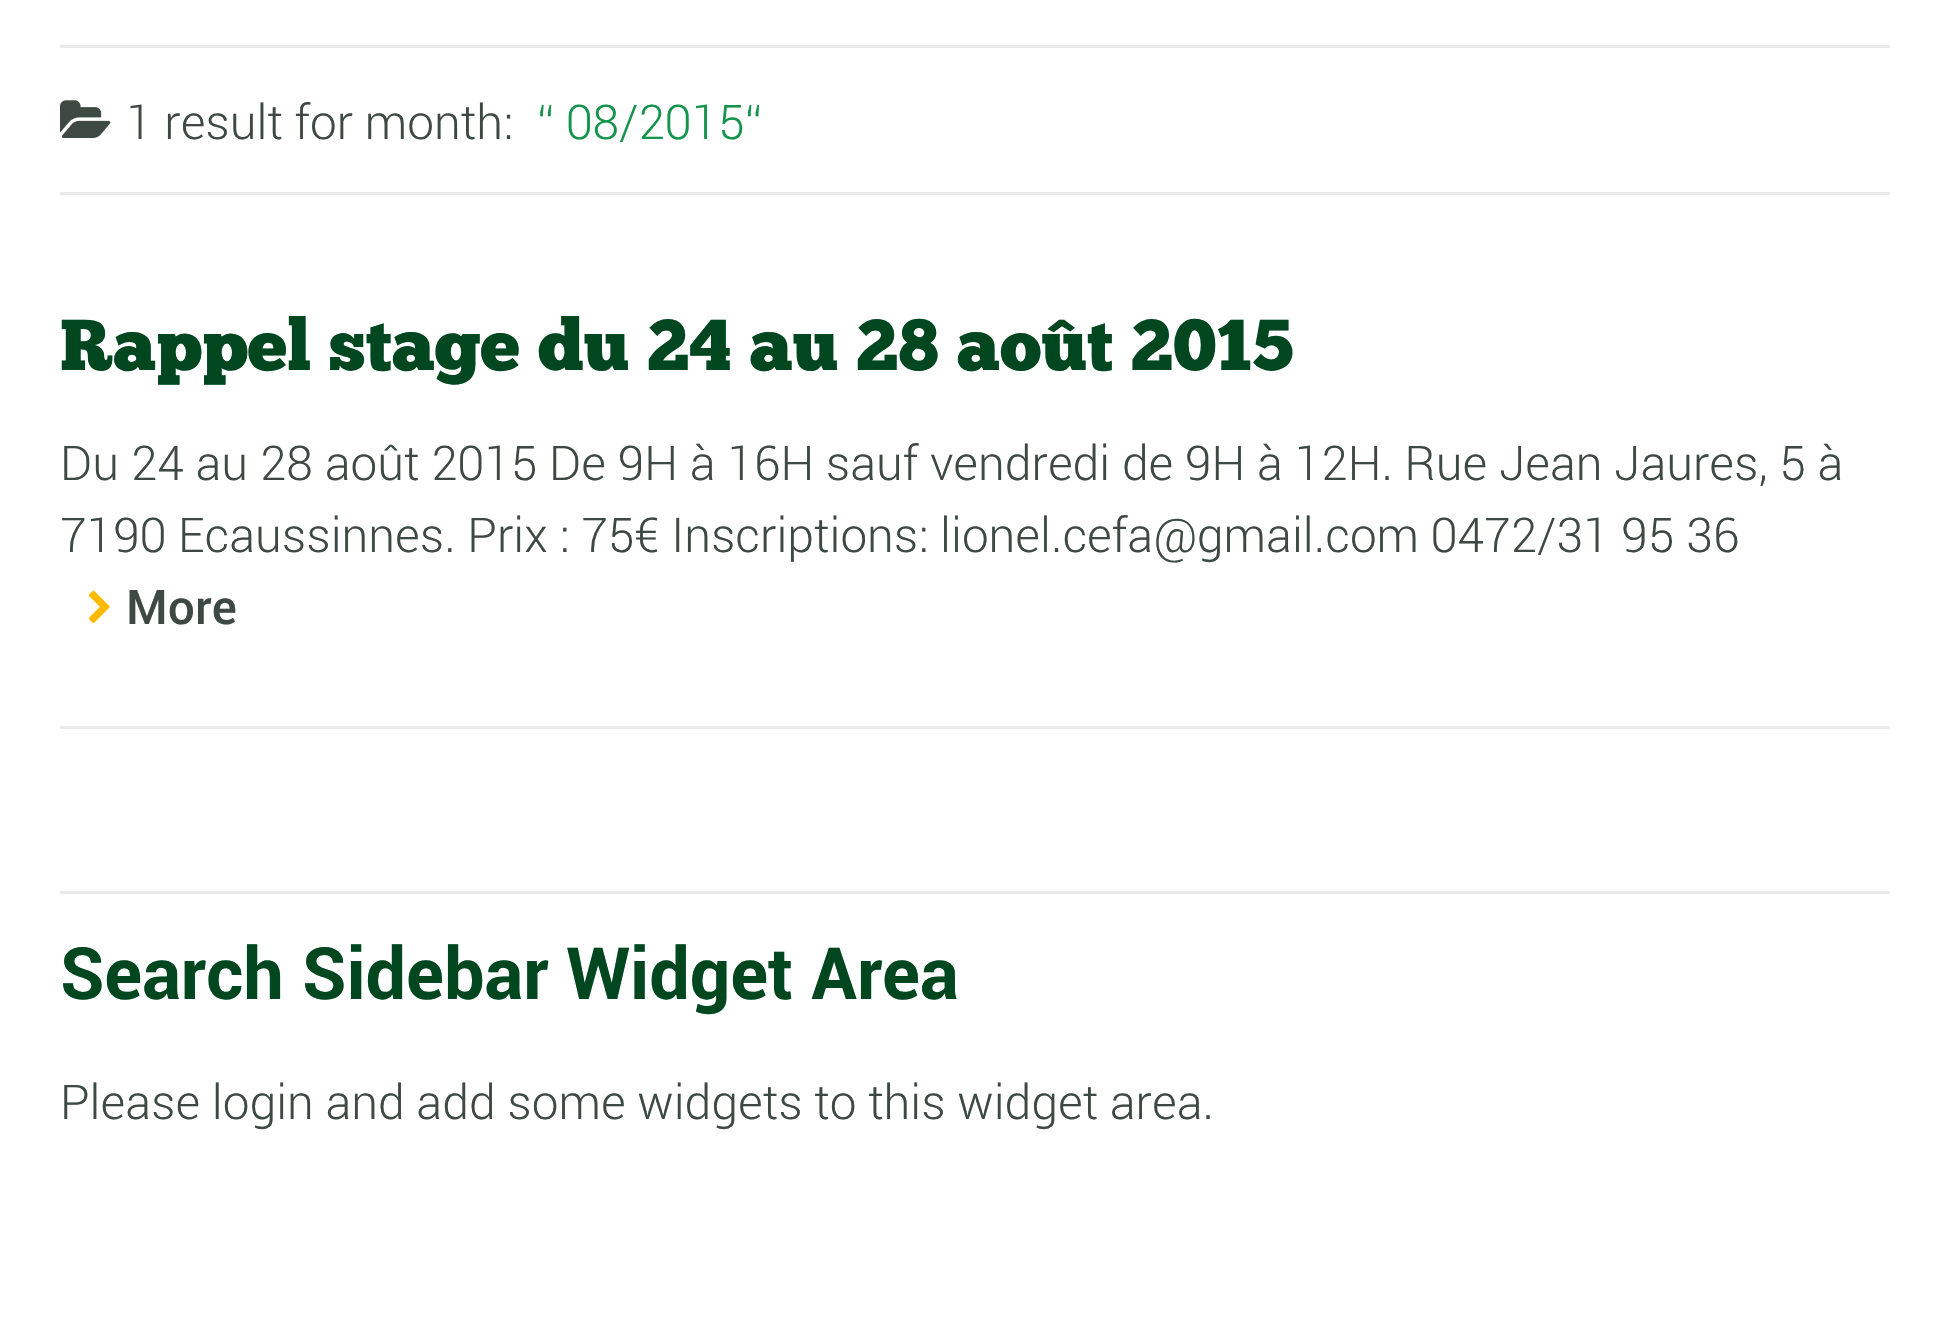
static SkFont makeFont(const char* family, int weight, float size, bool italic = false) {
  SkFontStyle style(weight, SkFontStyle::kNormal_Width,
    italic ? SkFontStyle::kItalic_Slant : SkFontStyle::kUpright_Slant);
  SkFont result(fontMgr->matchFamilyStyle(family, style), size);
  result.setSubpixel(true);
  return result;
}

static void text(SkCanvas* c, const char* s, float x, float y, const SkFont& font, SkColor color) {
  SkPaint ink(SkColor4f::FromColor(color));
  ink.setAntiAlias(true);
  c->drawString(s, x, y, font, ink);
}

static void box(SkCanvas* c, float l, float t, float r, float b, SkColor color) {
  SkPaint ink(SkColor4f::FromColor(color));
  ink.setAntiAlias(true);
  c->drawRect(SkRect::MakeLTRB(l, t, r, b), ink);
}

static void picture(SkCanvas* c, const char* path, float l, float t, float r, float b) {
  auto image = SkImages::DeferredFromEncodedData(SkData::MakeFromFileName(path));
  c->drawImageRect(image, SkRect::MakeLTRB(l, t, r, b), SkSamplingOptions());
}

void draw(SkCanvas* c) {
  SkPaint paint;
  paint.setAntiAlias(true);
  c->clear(0xffffffff);
  box(c, 60, 45, 1890, 48, 0xffeaeaea);
  box(c, 60, 192, 1890, 195, 0xffeaeaea);
  picture(c, "img_01.png", 60, 100, 111, 138);
  SkFont face1 = makeFont("Roboto", 300, 48);
  text(c, "1 result for month:", 126, 139, face1, 0xff3d4942);
  text(c, "“", 537, 139, face1, 0xff14934d);
  text(c, "08/2015“", 566, 139, face1, 0xff14934d);
  SkFont face2 = makeFont("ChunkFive", 400, 72);
  text(c, "Rappel stage du 24 au 28 août 2015", 60, 370, face2, 0xff004720);
  text(c, "Du 24 au 28 août 2015 De 9H à 16H sauf vendredi de 9H à 12H. Rue Jean Jaures, 5 à", 60, 480, face1, 0xff3d4942);
  text(c, "7190 Ecaussinnes. Prix : 75€ Inscriptions: lionel.cefa@gmail.com 0472/31 95 36", 60, 552, face1, 0xff3d4942);
  picture(c, "img_02.png", 88, 590, 110, 623);
  SkFont face3 = makeFont("Roboto", 500, 48);
  text(c, "More", 126, 624, face3, 0xff3d4942);
  box(c, 60, 726, 1890, 729, 0xffeaeaea);
  box(c, 60, 891, 1890, 894, 0xffeaeaea);
  SkFont face4 = makeFont("Roboto", 700, 72);
  text(c, "Search Sidebar Widget Area", 60, 999, face4, 0xff004720);
  text(c, "Please login and add some widgets to this widget area.", 60, 1119, face1, 0xff3d4942);
}
